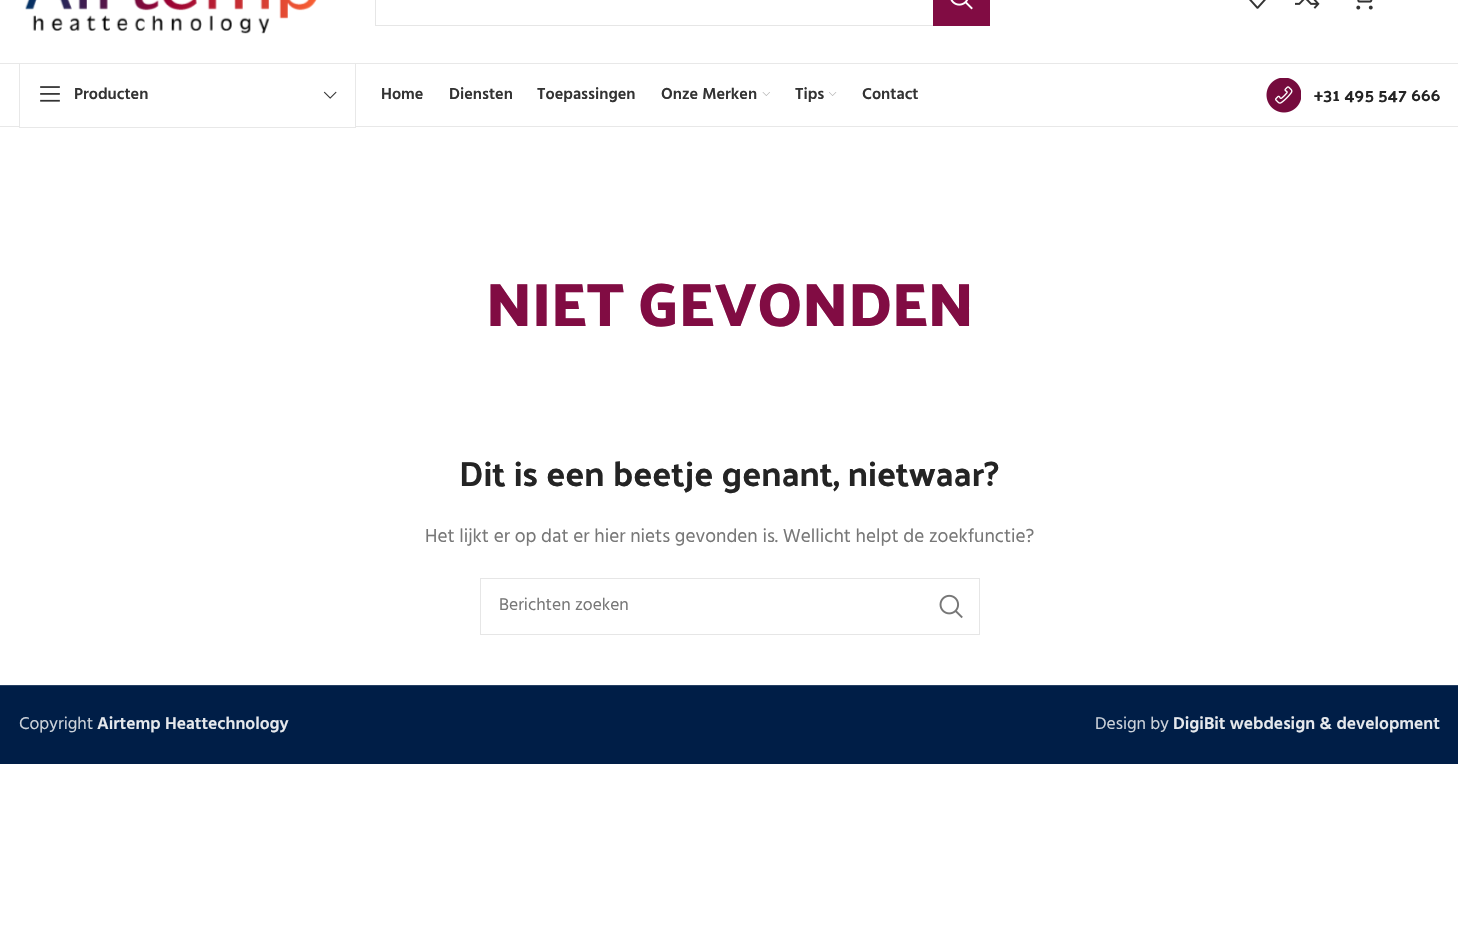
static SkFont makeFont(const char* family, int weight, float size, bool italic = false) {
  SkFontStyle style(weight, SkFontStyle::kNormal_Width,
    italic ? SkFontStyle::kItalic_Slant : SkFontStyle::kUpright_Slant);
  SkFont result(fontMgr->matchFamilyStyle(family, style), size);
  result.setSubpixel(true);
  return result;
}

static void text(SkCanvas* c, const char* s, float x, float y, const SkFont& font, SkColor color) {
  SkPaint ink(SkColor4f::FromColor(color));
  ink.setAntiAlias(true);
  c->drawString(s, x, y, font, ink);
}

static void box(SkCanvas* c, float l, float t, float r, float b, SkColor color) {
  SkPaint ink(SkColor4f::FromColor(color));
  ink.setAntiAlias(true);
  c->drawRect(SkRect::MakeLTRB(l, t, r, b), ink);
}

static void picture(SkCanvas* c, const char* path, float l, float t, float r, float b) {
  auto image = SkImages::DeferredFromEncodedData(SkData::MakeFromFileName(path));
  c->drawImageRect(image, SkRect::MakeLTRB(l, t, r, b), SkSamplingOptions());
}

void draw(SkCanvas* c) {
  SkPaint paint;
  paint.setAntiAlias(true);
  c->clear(0xffffffff);
  box(c, 0, 63, 1458, 64, 0xffe8e8e8);
  picture(c, "img_01.png", 25, 0, 317, 34);
  paint.setStyle(SkPaint::kStroke_Style);
  paint.setStrokeWidth(1);
  paint.setColor(0xffe6e6e6);
  c->drawRect(SkRect::MakeLTRB(375.5f, -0.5f, 989.5f, 25.5f), paint);
  box(c, 933, 0, 990, 26, 0xff810c43);
  picture(c, "img_02.png", 950, 0, 973, 10);
  picture(c, "img_03.png", 1249, 0, 1266, 9);
  picture(c, "img_04.png", 1295, 0, 1320, 9);
  picture(c, "img_05.png", 1356, 0, 1373, 10);
  box(c, 0, 126, 1458, 127, 0xffe8e8e8);
  box(c, 20, 126, 355, 127, 0xffffffff);
  paint.setColor(0xffe8e8e8);
  c->drawRect(SkRect::MakeLTRB(19.5f, 63.5f, 355.5f, 127.5f), paint);
  picture(c, "img_06.png", 40, 86, 60, 102);
  SkFont face1 = makeFont("Hind", 600, 16.25f);
  text(c, "Producten", 74, 99, face1, 0xff333333);
  picture(c, "img_07.png", 323, 91, 337, 99);
  text(c, "Home", 381, 99, face1, 0xff333333);
  text(c, "Diensten", 449, 99, face1, 0xff333333);
  text(c, "Toepassingen", 537, 99, face1, 0xff333333);
  text(c, "Onze Merken", 661, 99, face1, 0xff333333);
  picture(c, "img_08.png", 762, 92, 770, 96);
  text(c, "Tips", 795, 99, face1, 0xff333333);
  picture(c, "img_09.png", 829, 92, 837, 96);
  text(c, "Contact", 862, 99, face1, 0xff333333);
  picture(c, "img_10.png", 1266, 78, 1301, 113);
  SkFont face2 = makeFont("Palanquin Dark", 400, 17.5f);
  text(c, "+31 495 547 666", 1314, 101, face2, 0xff242424);
  SkFont face3 = makeFont("Palanquin Dark", 600, 61.25f);
  text(c, "NIET GEVONDEN", 486, 326, face3, 0xff810c43);
  SkFont face4 = makeFont("Palanquin Dark", 400, 35);
  text(c, "Dit is een beetje genant, nietwaar?", 459, 486, face4, 0xff242424);
  SkFont face5 = makeFont("Hind", 400, 19.25f);
  text(c, "Het lijkt er op dat er hier niets gevonden is. Wellicht helpt de zoekfunctie?", 425, 542, face5, 0xff777777);
  paint.setColor(0xffe6e6e6);
  c->drawRect(SkRect::MakeLTRB(480.5f, 578.5f, 979.5f, 634.5f), paint);
  SkFont face6 = makeFont("Hind", 400, 17.5f);
  text(c, "Berichten zoeken", 499, 610, face6, 0xff777777);
  picture(c, "img_11.png", 939, 594, 963, 619);
  box(c, 0, 686, 1458, 764, 0xff001e47);
  box(c, 0, 685, 1458, 686, 0xff264063);
  text(c, "Copyright", 19, 729, face6, 0xffccd2da);
  SkFont face7 = makeFont("Hind", 600, 17.5f);
  text(c, "Airtemp Heattechnology", 97, 729, face7, 0xffe6e9ed);
  text(c, "Design by", 1095, 729, face6, 0xffccd2da);
  text(c, "DigiBit webdesign & development", 1173, 729, face7, 0xffe6e9ed);
}
